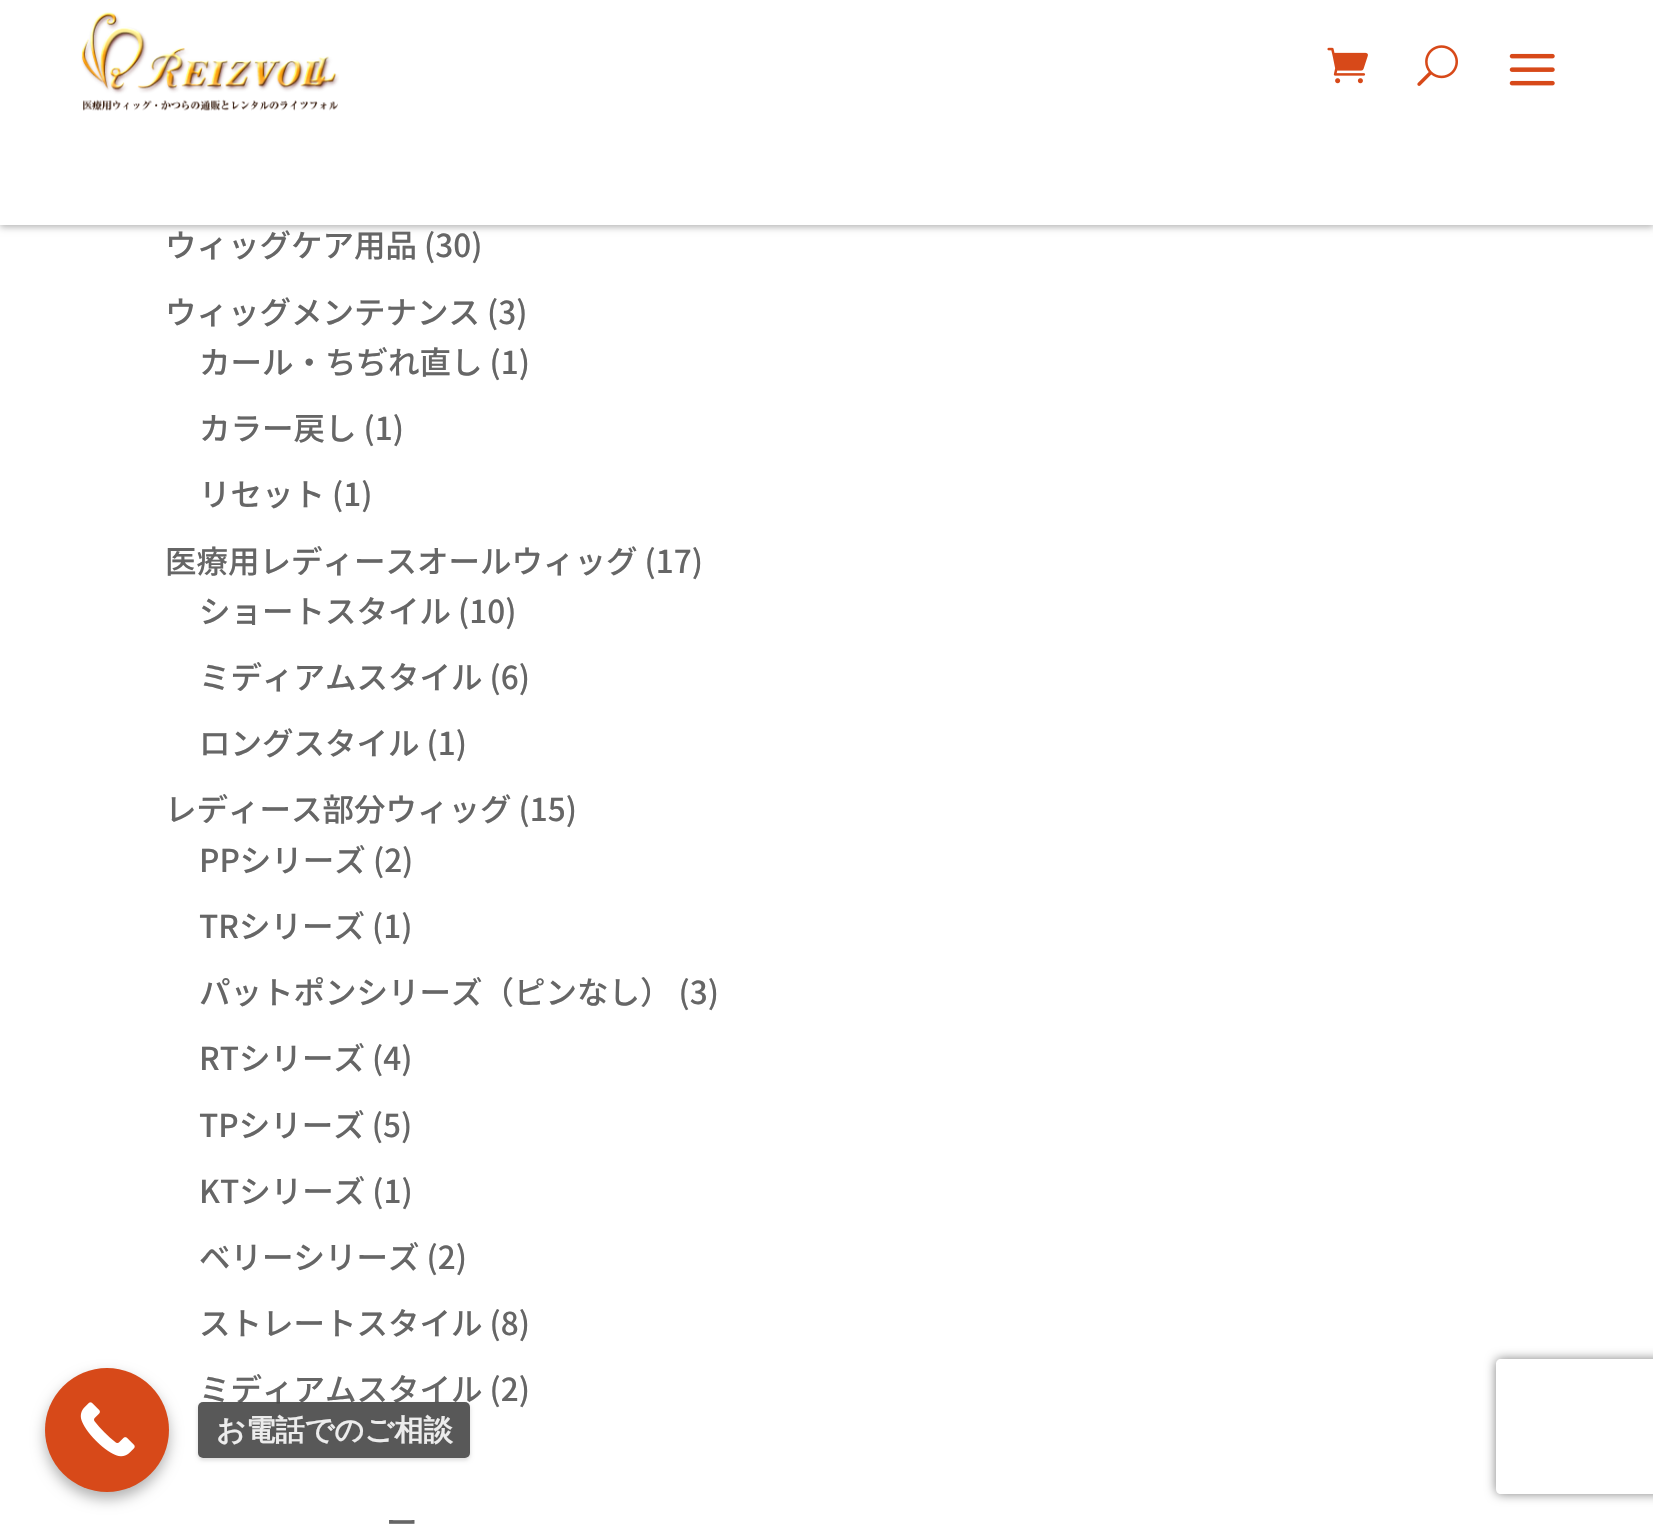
static SkFont makeFont(const char* family, int weight, float size, bool italic = false) {
  SkFontStyle style(weight, SkFontStyle::kNormal_Width,
    italic ? SkFontStyle::kItalic_Slant : SkFontStyle::kUpright_Slant);
  SkFont result(fontMgr->matchFamilyStyle(family, style), size);
  result.setSubpixel(true);
  return result;
}

static void text(SkCanvas* c, const char* s, float x, float y, const SkFont& font, SkColor color) {
  SkPaint ink(SkColor4f::FromColor(color));
  ink.setAntiAlias(true);
  c->drawString(s, x, y, font, ink);
}

static void box(SkCanvas* c, float l, float t, float r, float b, SkColor color) {
  SkPaint ink(SkColor4f::FromColor(color));
  ink.setAntiAlias(true);
  c->drawRect(SkRect::MakeLTRB(l, t, r, b), ink);
}

static void roundBox(SkCanvas* c, float l, float t, float r, float b, float radius, SkColor color) {
  SkPaint ink(SkColor4f::FromColor(color));
  ink.setAntiAlias(true);
  c->drawRoundRect(SkRect::MakeLTRB(l, t, r, b), radius, radius, ink);
}

static void picture(SkCanvas* c, const char* path, float l, float t, float r, float b) {
  auto image = SkImages::DeferredFromEncodedData(SkData::MakeFromFileName(path));
  c->drawImageRect(image, SkRect::MakeLTRB(l, t, r, b), SkSamplingOptions());
}

void draw(SkCanvas* c) {
  SkPaint paint;
  paint.setAntiAlias(true);
  c->clear(0xffffffff);
  paint.setColor(0x4d000000);
  paint.setMaskFilter(SkMaskFilter::MakeBlur(kNormal_SkBlurStyle, 3.5f));
  c->drawRect(SkRect::MakeLTRB(0, 2, 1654, 227), paint);
  paint.setMaskFilter(nullptr);
  box(c, 0, 0, 1653, 225, 0xffffffff);
  picture(c, "img_01.png", 81, 12, 339, 111);
  picture(c, "img_02.png", 1327, 47, 1368, 84);
  picture(c, "img_03.png", 1417, 45, 1458, 86);
  picture(c, "img_04.png", 1509, 53, 1555, 86);
  SkFont face1 = makeFont("Noto Sans JP", 500, 31.5f);
  text(c, "ウィッグケア用品 (30)", 165, 257, face1, 0xff666666);
  text(c, "ウィッグメンテナンス (3)", 165, 324, face1, 0xff666666);
  text(c, "カール・ちぢれ直し (1)", 199, 374, face1, 0xff666666);
  text(c, "カラー戻し (1)", 199, 440, face1, 0xff666666);
  text(c, "リセット (1)", 199, 506, face1, 0xff666666);
  text(c, "医療用レディースオールウィッグ (17)", 165, 573, face1, 0xff666666);
  text(c, "ショートスタイル (10)", 199, 623, face1, 0xff666666);
  text(c, "ミディアムスタイル (6)", 199, 689, face1, 0xff666666);
  text(c, "ロングスタイル (1)", 199, 755, face1, 0xff666666);
  text(c, "レディース部分ウィッグ (15)", 165, 821, face1, 0xff666666);
  text(c, "PPシリーズ (2)", 199, 872, face1, 0xff666666);
  text(c, "TRシリーズ (1)", 199, 938, face1, 0xff666666);
  text(c, "パットポンシリーズ（ピンなし） (3)", 199, 1004, face1, 0xff666666);
  text(c, "RTシリーズ (4)", 199, 1070, face1, 0xff666666);
  text(c, "TPシリーズ (5)", 199, 1137, face1, 0xff666666);
  text(c, "KTシリーズ (1)", 199, 1203, face1, 0xff666666);
  text(c, "ベリーシリーズ (2)", 199, 1269, face1, 0xff666666);
  text(c, "ストレートスタイル (8)", 199, 1335, face1, 0xff666666);
  text(c, "ミディアムスタイル (2)", 199, 1401, face1, 0xff666666);
  text(c, "ー", 386, 1534, face1, 0xff666666);
  c->save();
  c->clipPath(SkPathBuilder(SkPathFillType::kEvenOdd).moveTo(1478, 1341).lineTo(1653, 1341).lineTo(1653, 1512).lineTo(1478, 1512).close().moveTo(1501, 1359).lineTo(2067, 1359).cubicTo(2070, 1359, 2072, 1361, 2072, 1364).lineTo(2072, 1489).cubicTo(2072, 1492, 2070, 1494, 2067, 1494).lineTo(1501, 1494).cubicTo(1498, 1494, 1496, 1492, 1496, 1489).lineTo(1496, 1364).cubicTo(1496, 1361, 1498, 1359, 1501, 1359).close().detach(), true);
  paint.setColor(0xff808080);
  paint.setMaskFilter(SkMaskFilter::MakeBlur(kNormal_SkBlurStyle, 5.5f));
  c->drawRoundRect(SkRect::MakeLTRB(1496, 1359, 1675, 1494), 5, 5, paint);
  paint.setMaskFilter(nullptr);
  c->restore();
  paint.setColor(0x4d000000);
  paint.setMaskFilter(SkMaskFilter::MakeBlur(kNormal_SkBlurStyle, 7));
  c->drawRoundRect(SkRect::MakeLTRB(45, 1375, 169, 1499), 62, 62, paint);
  paint.setMaskFilter(nullptr);
  paint.setColor(0xffd74919);
  c->drawCircle(107, 1430, 62, paint);
  picture(c, "img_05.png", 80, 1402, 135, 1457);
  c->save();
  c->clipPath(SkPathBuilder(SkPathFillType::kEvenOdd).moveTo(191, 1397).lineTo(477, 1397).lineTo(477, 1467).lineTo(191, 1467).close().moveTo(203, 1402).lineTo(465, 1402).cubicTo(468, 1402, 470, 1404, 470, 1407).lineTo(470, 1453).cubicTo(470, 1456, 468, 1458, 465, 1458).lineTo(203, 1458).cubicTo(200, 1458, 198, 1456, 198, 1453).lineTo(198, 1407).cubicTo(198, 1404, 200, 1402, 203, 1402).close().detach(), true);
  paint.setColor(0x26000000);
  paint.setMaskFilter(SkMaskFilter::MakeBlur(kNormal_SkBlurStyle, 2));
  c->drawRoundRect(SkRect::MakeLTRB(198, 1404, 470, 1460), 5, 5, paint);
  paint.setMaskFilter(nullptr);
  c->restore();
  roundBox(c, 198, 1402, 470, 1458, 5, 0xe6464646);
  SkFont face2 = makeFont("WenQuanYi Zen Hei", 700, 29.25f);
  text(c, "お電話でのご相談", 216, 1440, face2, 0xffececec);
}
